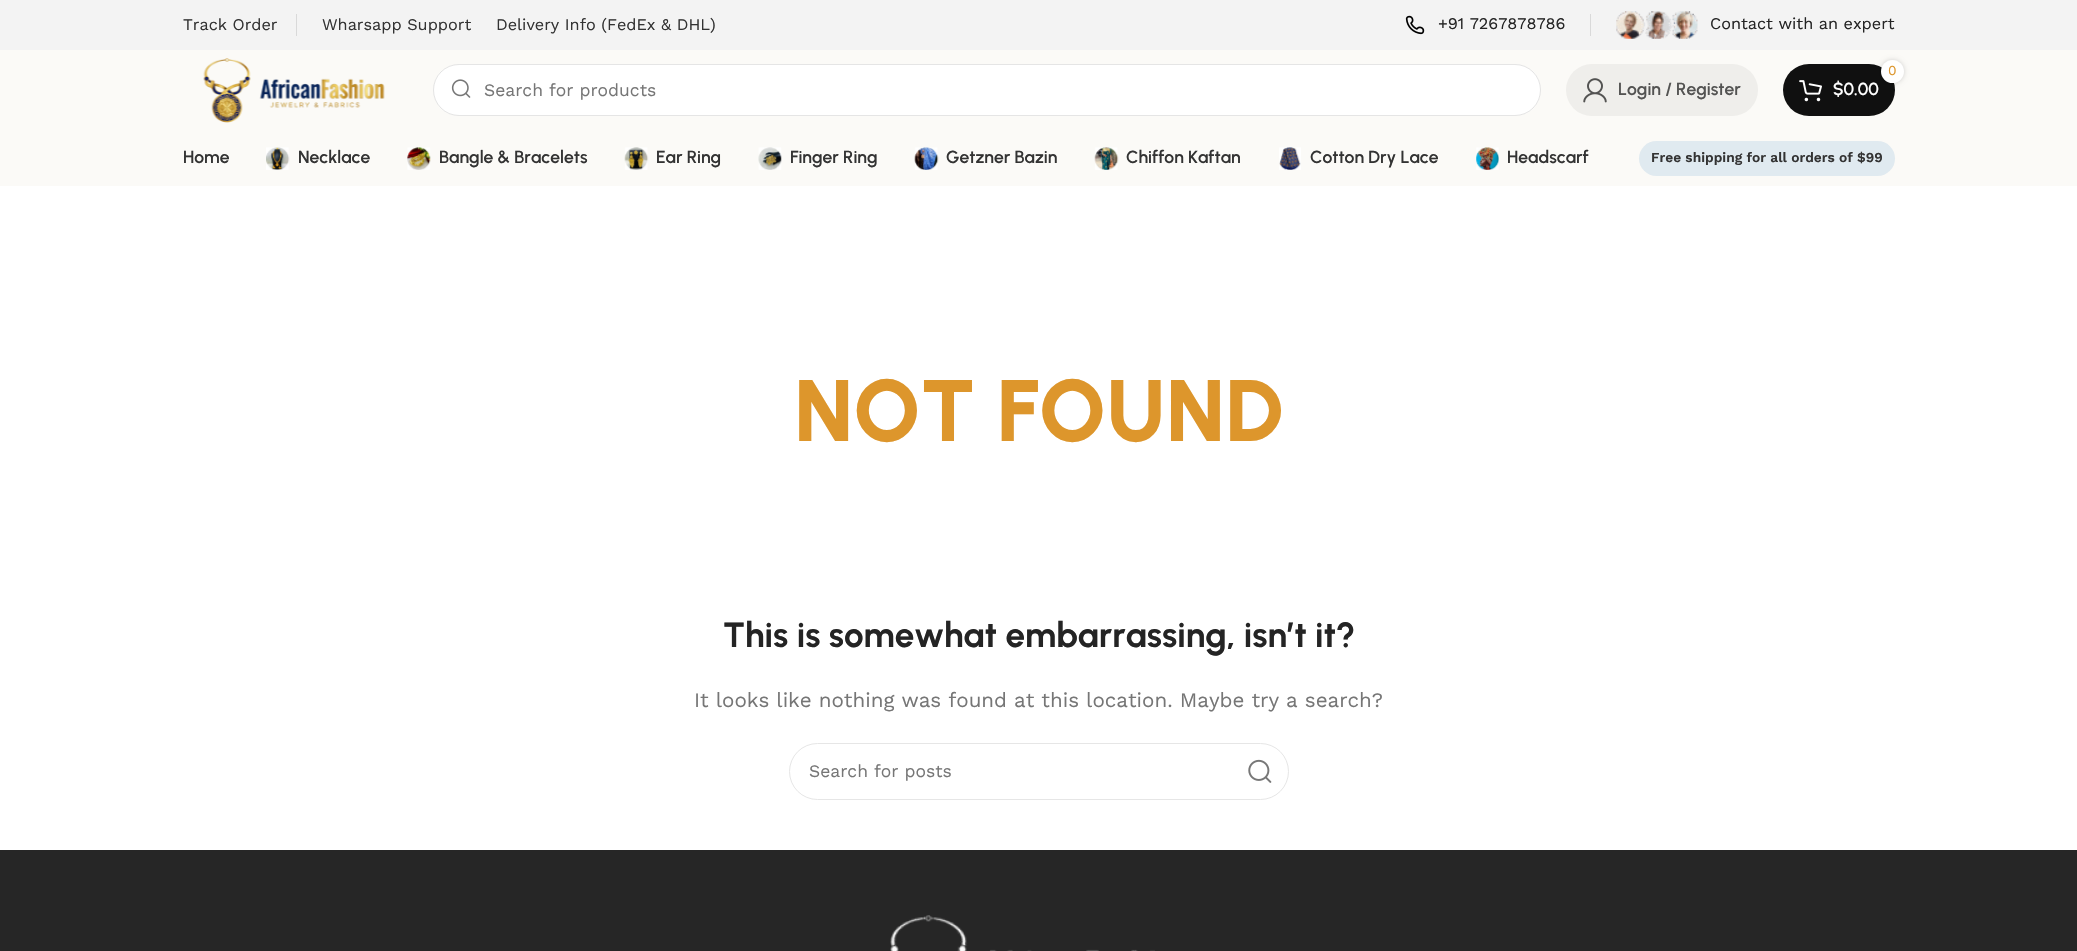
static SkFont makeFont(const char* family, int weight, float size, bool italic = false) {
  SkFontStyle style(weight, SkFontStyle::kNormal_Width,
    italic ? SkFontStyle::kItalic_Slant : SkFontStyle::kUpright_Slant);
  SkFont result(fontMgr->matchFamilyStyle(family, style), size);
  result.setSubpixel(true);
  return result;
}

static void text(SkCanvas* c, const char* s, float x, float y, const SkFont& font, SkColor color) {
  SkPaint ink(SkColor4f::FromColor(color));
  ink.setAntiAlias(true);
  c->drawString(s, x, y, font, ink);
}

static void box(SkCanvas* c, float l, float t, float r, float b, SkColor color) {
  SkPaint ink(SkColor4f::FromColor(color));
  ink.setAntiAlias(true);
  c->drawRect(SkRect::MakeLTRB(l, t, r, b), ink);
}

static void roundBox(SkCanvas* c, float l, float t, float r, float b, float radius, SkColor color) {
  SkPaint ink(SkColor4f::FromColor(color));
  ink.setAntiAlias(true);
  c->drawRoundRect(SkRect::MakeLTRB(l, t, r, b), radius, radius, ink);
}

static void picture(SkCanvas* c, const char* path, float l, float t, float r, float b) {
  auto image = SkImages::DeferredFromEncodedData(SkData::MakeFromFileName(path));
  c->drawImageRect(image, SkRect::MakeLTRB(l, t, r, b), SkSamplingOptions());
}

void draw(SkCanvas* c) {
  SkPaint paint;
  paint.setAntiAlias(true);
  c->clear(0xffffffff);
  box(c, 0, 0, 2077, 50, 0xfff3f3f3);
  SkFont face1 = makeFont("Work Sans", 400, 16.25f);
  text(c, "Track Order", 183, 30, face1, 0xff333333);
  box(c, 296, 14, 297, 36, 0xffd9d9d9);
  text(c, "Wharsapp Support", 322, 30, face1, 0xff333333);
  text(c, "Delivery Info (FedEx & DHL)", 496, 30, face1, 0xff333333);
  picture(c, "img_01.png", 1405, 15, 1425, 35);
  text(c, "+91 7267878786", 1438, 29, face1, 0xff242424);
  box(c, 1590, 14, 1591, 36, 0xffd9d9d9);
  picture(c, "img_02.png", 1616, 11, 1698, 39);
  text(c, "Contact with an expert", 1710, 29, face1, 0xff242424);
  box(c, 0, 50, 2077, 186, 0xfffbfaf7);
  picture(c, "img_03.png", 203, 58, 385, 123);
  roundBox(c, 433, 64, 1541, 116, 26, 0xffffffff);
  paint.setStyle(SkPaint::kStroke_Style);
  paint.setStrokeWidth(1);
  paint.setColor(0x1a000000);
  c->drawRoundRect(SkRect::MakeLTRB(433.5f, 64.5f, 1540.5f, 115.5f), 25.5f, 25.5f, paint);
  picture(c, "img_04.png", 451, 79, 471, 98);
  SkFont face2 = makeFont("Work Sans", 400, 17.5f);
  text(c, "Search for products", 484, 96, face2, 0xff767676);
  roundBox(c, 1566, 64, 1758, 116, 26, 0xffefeeeb);
  picture(c, "img_05.png", 1583, 78, 1607, 103);
  SkFont face3 = makeFont("Urbanist", 600, 17.5f);
  text(c, "Login / Register", 1618, 95, face3, 0xff535352);
  roundBox(c, 1783, 64, 1895, 116, 26, 0xff101010);
  paint.setStyle(SkPaint::kFill_Style);
  paint.setColor(0x2b000000);
  paint.setMaskFilter(SkMaskFilter::MakeBlur(kNormal_SkBlurStyle, 2.5f));
  c->drawRoundRect(SkRect::MakeLTRB(1881, 60, 1904, 83), 11.5f, 11.5f, paint);
  paint.setMaskFilter(nullptr);
  paint.setColor(0xffffffff);
  c->drawCircle(1892.5f, 71.5f, 11.5f, paint);
  SkFont face4 = makeFont("Work Sans", 400, 13.75f);
  text(c, "0", 1888, 75, face4, 0xffdd962c);
  picture(c, "img_06.png", 1799, 80, 1822, 102);
  text(c, "$0.00", 1833, 95, face3, 0xffffffff);
  text(c, "Home", 183, 163, face3, 0xff333333);
  picture(c, "img_07.png", 266, 147, 290, 170);
  text(c, "Necklace", 298, 163, face3, 0xff333333);
  picture(c, "img_08.png", 407, 147, 431, 170);
  text(c, "Bangle & Bracelets", 439, 163, face3, 0xff333333);
  picture(c, "img_09.png", 624, 147, 649, 170);
  text(c, "Ear Ring", 656, 163, face3, 0xff333333);
  picture(c, "img_10.png", 758, 147, 782, 170);
  text(c, "Finger Ring", 790, 163, face3, 0xff333333);
  picture(c, "img_11.png", 914, 147, 939, 170);
  text(c, "Getzner Bazin", 946, 163, face3, 0xff333333);
  picture(c, "img_12.png", 1094, 147, 1119, 170);
  text(c, "Chiffon Kaftan", 1126, 163, face3, 0xff333333);
  picture(c, "img_13.png", 1279, 147, 1301, 170);
  text(c, "Cotton Dry Lace", 1310, 163, face3, 0xff333333);
  picture(c, "img_14.png", 1476, 147, 1499, 170);
  text(c, "Headscarf", 1507, 163, face3, 0xff333333);
  roundBox(c, 1639, 141, 1895, 176, 17.5f, 0xffe0eaf0);
  SkFont face5 = makeFont("Work Sans", 600, 13.75f);
  text(c, "Free shipping for all orders of $99", 1651, 162, face5, 0xff333333);
  SkFont face6 = makeFont("Urbanist", 800, 87.25f);
  text(c, "NOT FOUND", 794, 441, face6, 0xffdd962c);
  SkFont face7 = makeFont("Urbanist", 700, 35);
  text(c, "This is somewhat embarrassing, isn’t it?", 723, 647, face7, 0xff242424);
  SkFont face8 = makeFont("Work Sans", 400, 20.6f);
  text(c, "It looks like nothing was found at this location. Maybe try a search?", 694, 707, face8, 0xff767676);
  paint.setStyle(SkPaint::kStroke_Style);
  paint.setColor(0xffe6e6e6);
  c->drawRoundRect(SkRect::MakeLTRB(789.5f, 743.5f, 1288.5f, 799.5f), 28, 28, paint);
  text(c, "Search for posts", 809, 777, face2, 0xff767676);
  picture(c, "img_15.png", 1248, 759, 1272, 783);
  box(c, 0, 850, 2077, 951, 0xff262626);
  picture(c, "img_16.png", 890, 915, 1155, 951);
}
